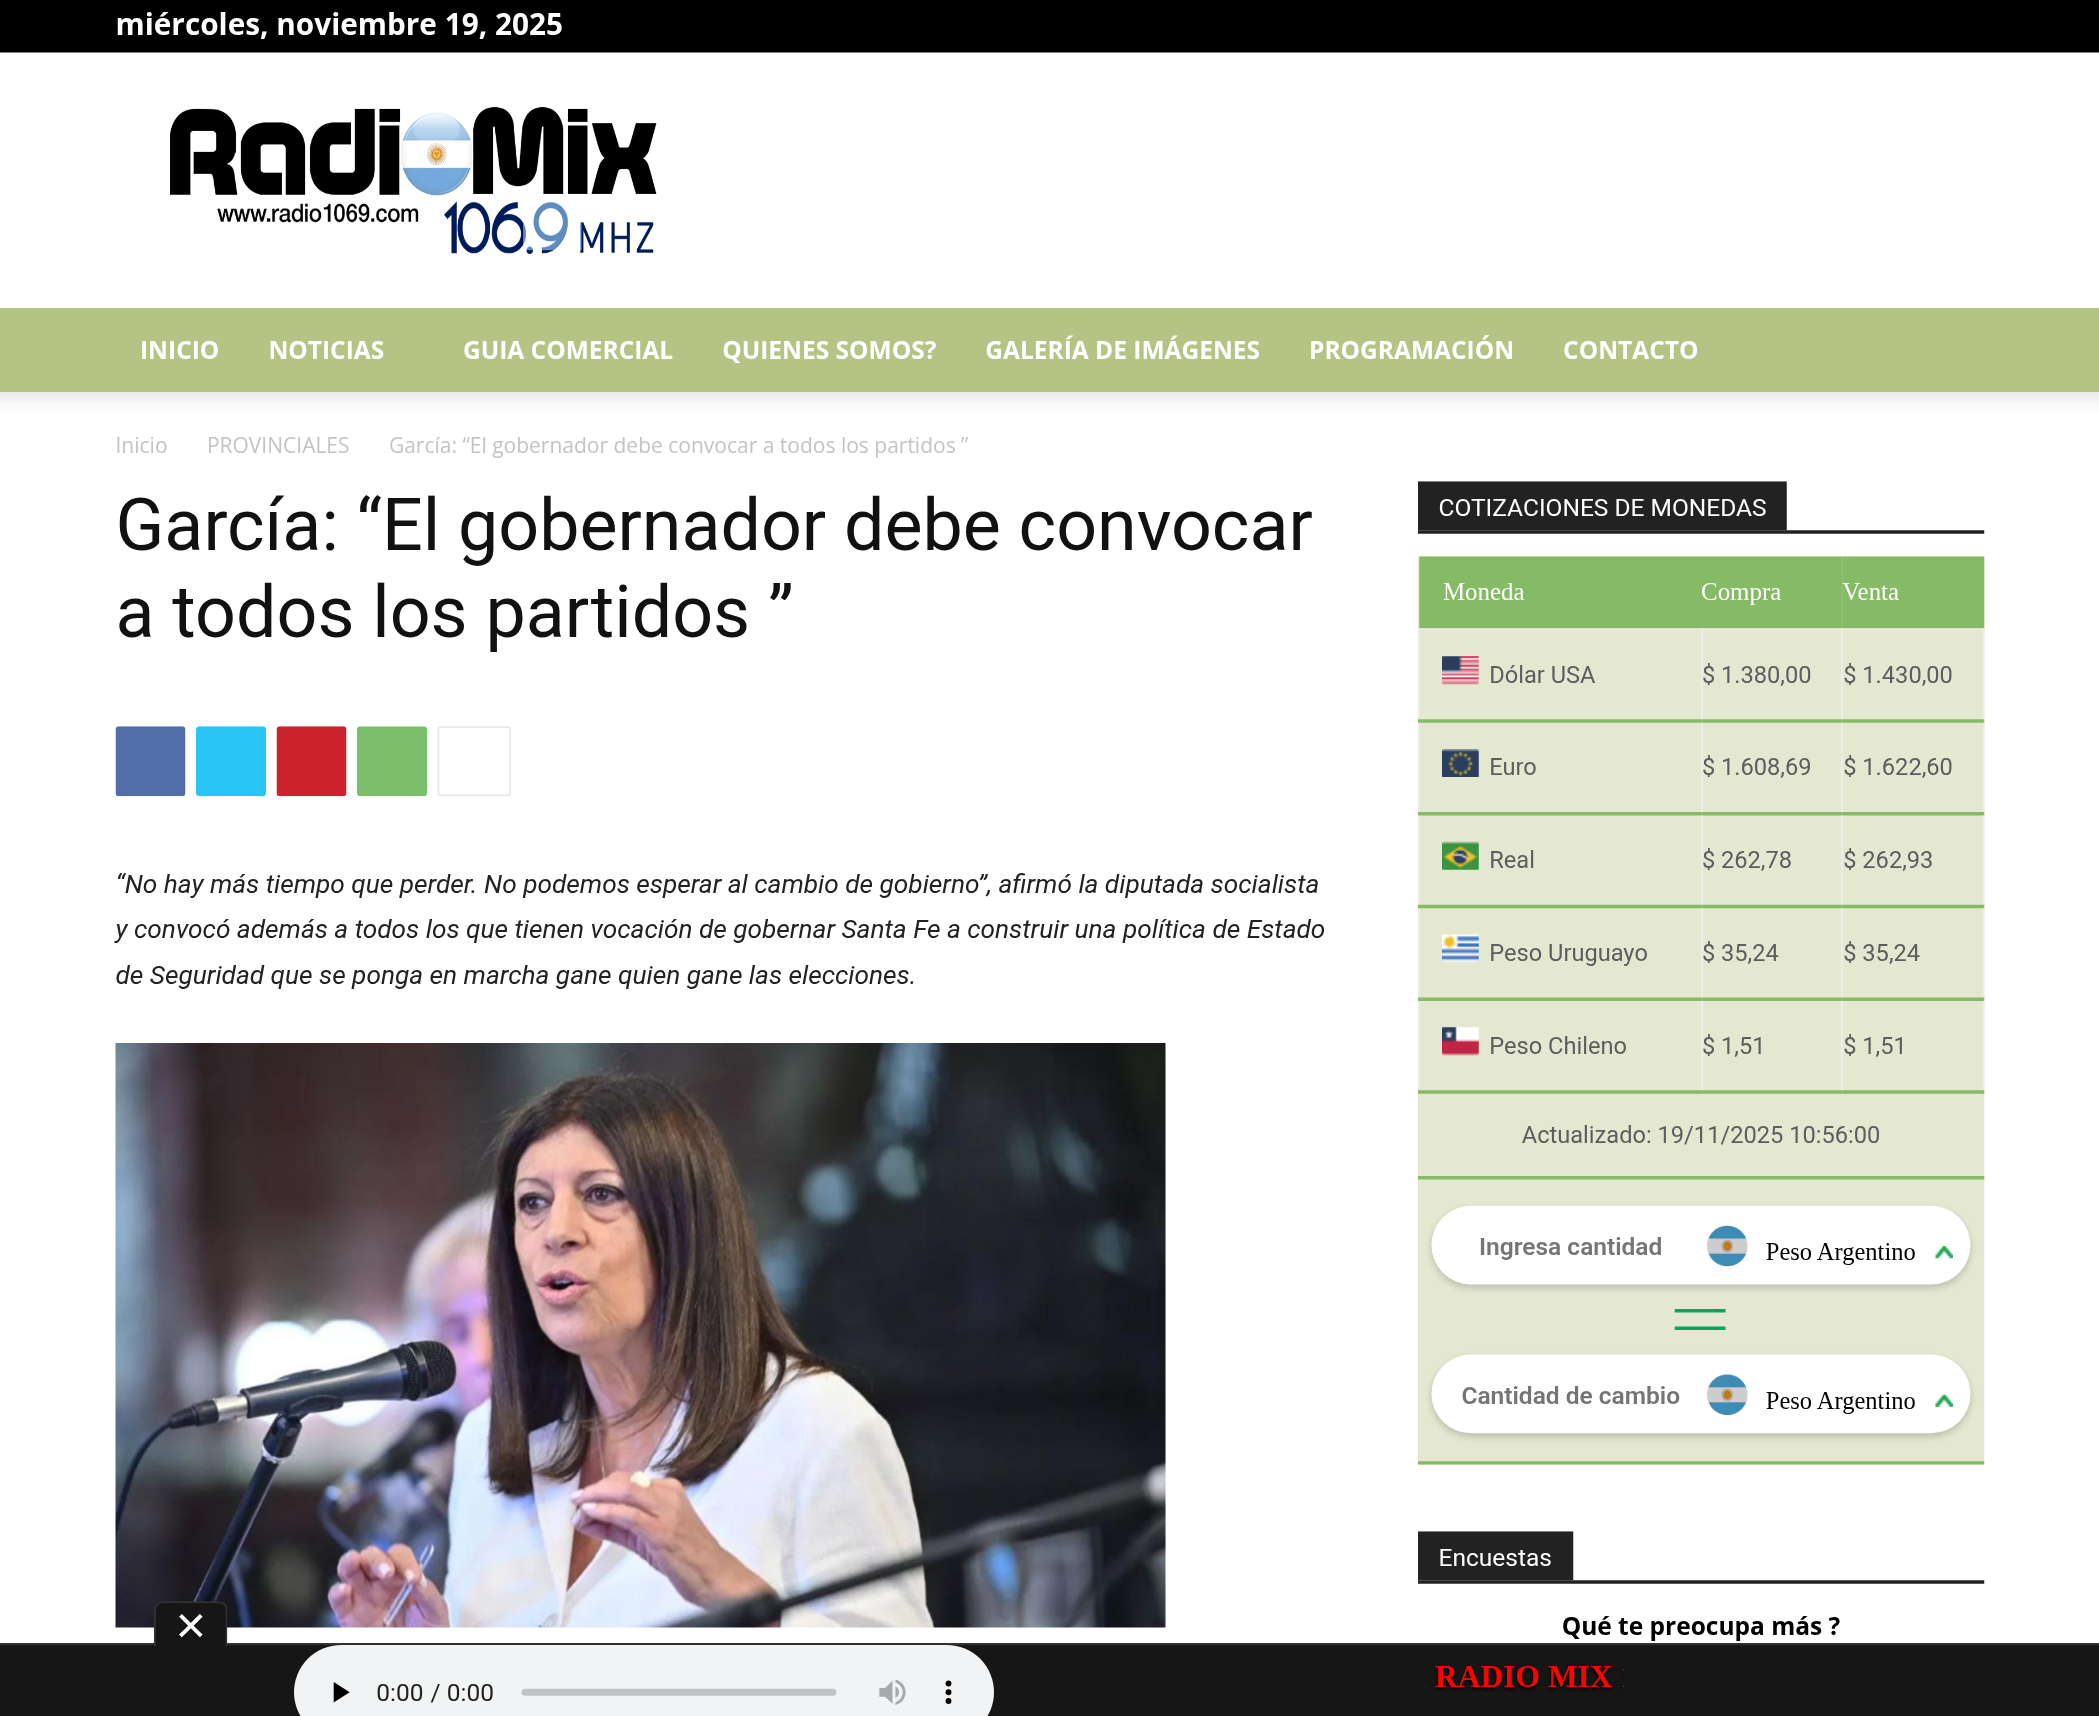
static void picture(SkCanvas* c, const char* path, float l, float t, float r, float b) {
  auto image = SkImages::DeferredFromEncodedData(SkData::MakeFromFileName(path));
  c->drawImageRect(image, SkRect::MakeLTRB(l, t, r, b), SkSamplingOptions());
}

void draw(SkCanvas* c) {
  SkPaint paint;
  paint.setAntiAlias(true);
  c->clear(0xffffffff);
  picture(c, "img_01.png", 0, 0, 2099, 1716);
}
